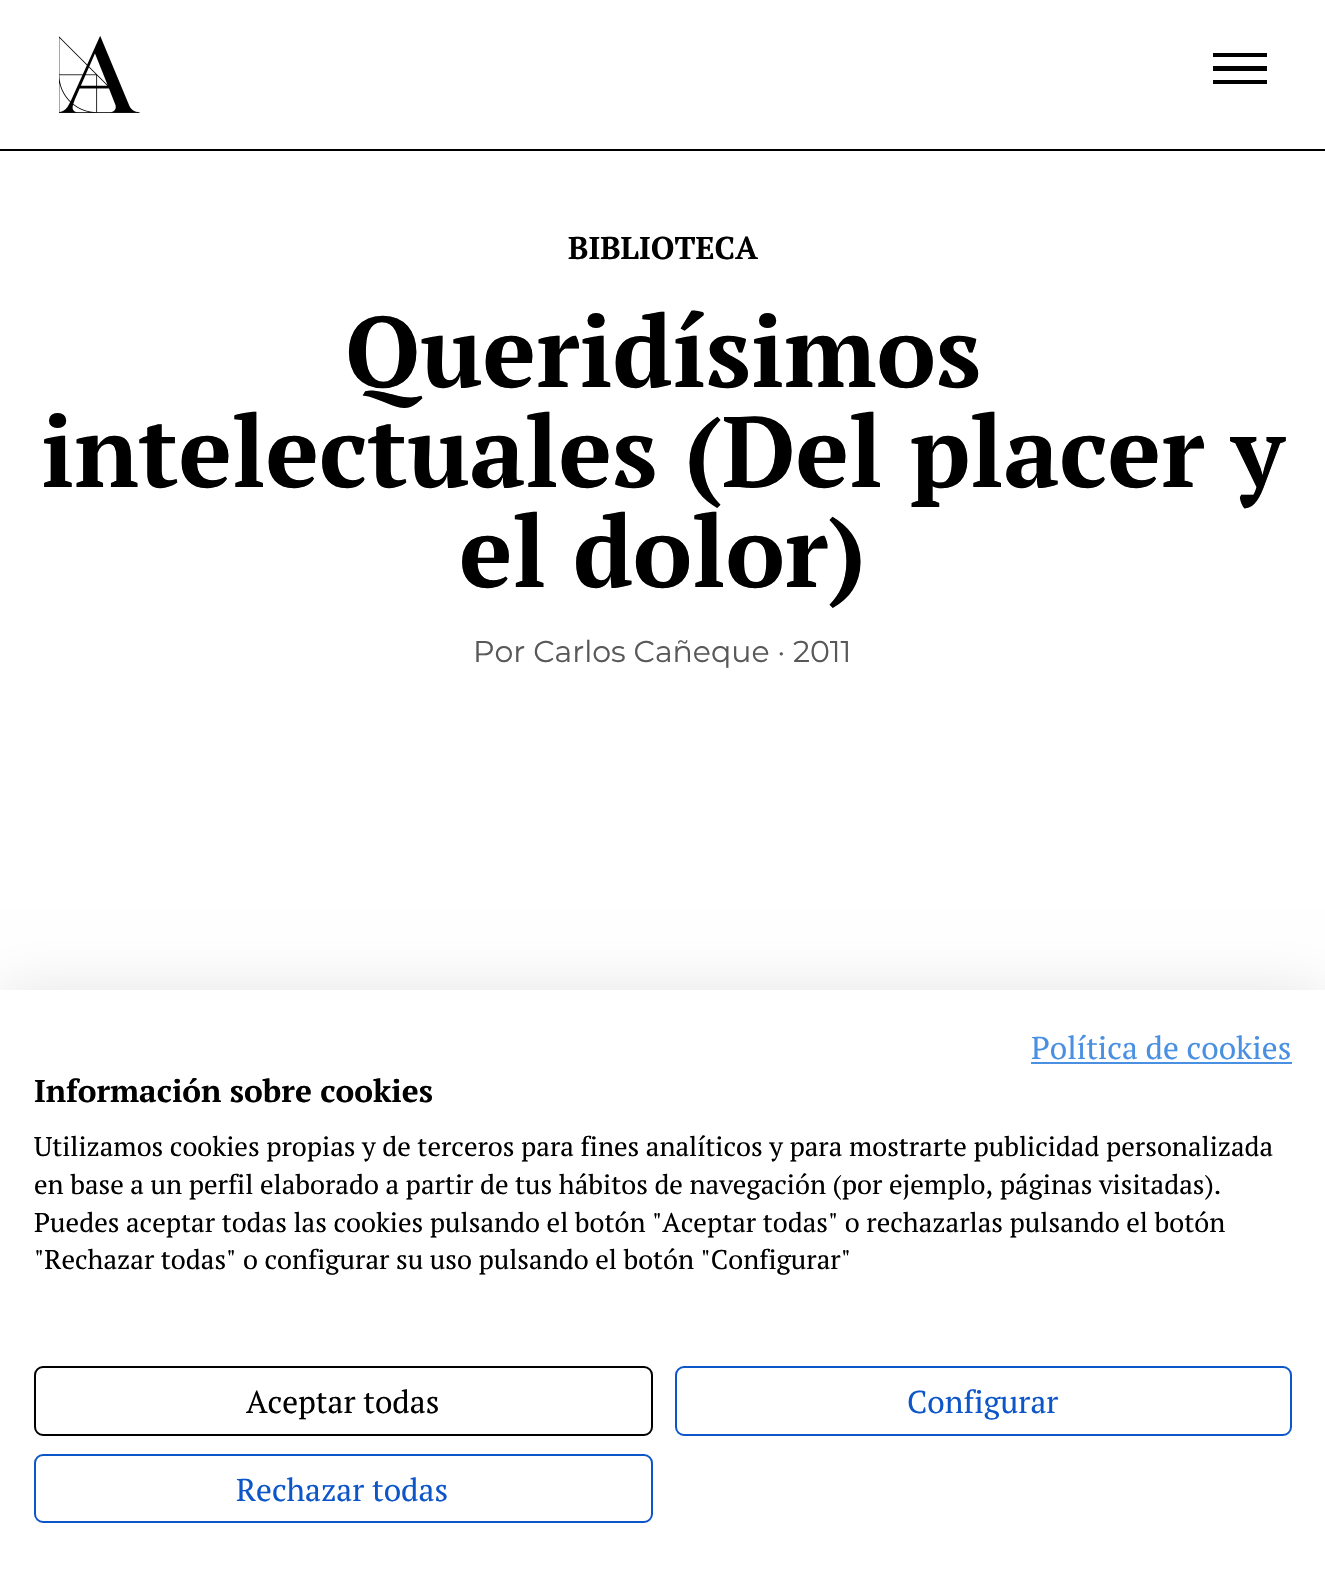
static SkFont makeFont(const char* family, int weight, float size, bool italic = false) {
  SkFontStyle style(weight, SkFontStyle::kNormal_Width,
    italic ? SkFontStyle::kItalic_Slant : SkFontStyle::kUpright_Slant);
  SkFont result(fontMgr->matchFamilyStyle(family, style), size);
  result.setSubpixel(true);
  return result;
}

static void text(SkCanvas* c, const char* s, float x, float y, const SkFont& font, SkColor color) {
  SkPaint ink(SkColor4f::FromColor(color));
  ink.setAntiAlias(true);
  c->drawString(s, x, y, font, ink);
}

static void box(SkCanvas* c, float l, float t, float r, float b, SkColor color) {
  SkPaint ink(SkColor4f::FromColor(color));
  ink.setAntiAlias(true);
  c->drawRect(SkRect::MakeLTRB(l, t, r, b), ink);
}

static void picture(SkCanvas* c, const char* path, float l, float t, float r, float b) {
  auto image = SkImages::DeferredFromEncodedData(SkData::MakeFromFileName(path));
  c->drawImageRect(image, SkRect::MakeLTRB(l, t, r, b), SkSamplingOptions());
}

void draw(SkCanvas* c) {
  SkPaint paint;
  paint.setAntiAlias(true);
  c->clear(0xffffffff);
  box(c, 0, 149, 1325, 151, 0xff000000);
  picture(c, "img_01.png", 59, 36, 140, 113);
  paint.setColor(0xff000000);
  c->drawPath(SkPathBuilder().moveTo(1213, 53).lineTo(1267, 53).lineTo(1267, 57).lineTo(1213, 57).close().moveTo(1213, 66).lineTo(1267, 66).lineTo(1267, 71).lineTo(1213, 71).close().moveTo(1213, 80).lineTo(1267, 80).lineTo(1267, 84).lineTo(1213, 84).close().detach(), paint);
  SkFont face1 = makeFont("PT Serif", 700, 31.5f);
  text(c, "BIBLIOTECA", 568, 259, face1, 0xff000000);
  SkFont face2 = makeFont("PT Serif", 700, 100);
  text(c, "Queridísimos", 345, 387, face2, 0xff000000);
  text(c, "intelectuales (Del placer y", 41, 487, face2, 0xff000000);
  text(c, "el dolor)", 459, 587, face2, 0xff000000);
  SkFont face3 = makeFont("Montserrat", 400, 30);
  text(c, "Por Carlos Cañeque · 2011", 473, 662, face3, 0xff585858);
  paint.setColor(0x1a000000);
  paint.setMaskFilter(SkMaskFilter::MakeBlur(kNormal_SkBlurStyle, 27));
  c->drawRect(SkRect::MakeLTRB(0, 990, 1325, 1584), paint);
  paint.setMaskFilter(nullptr);
  box(c, 0, 990, 1325, 1584, 0xffffffff);
  SkFont face4 = makeFont("PT Serif", 400, 31.5f);
  text(c, "Política de cookies", 1031, 1059, face4, 0xff4a90e2);
  box(c, 1031, 1062, 1292, 1064, 0xff4a90e2);
  text(c, "Información sobre cookies", 34, 1102, face1, 0xff000000);
  SkFont face5 = makeFont("PT Serif", 400, 27);
  text(c, "Utilizamos cookies propias y de terceros para fines analíticos y para mostrarte publicidad personalizada", 34, 1156, face5, 0xff000000);
  text(c, "en base a un perfil elaborado a partir de tus hábitos de navegación (por ejemplo, páginas visitadas).", 34, 1194, face5, 0xff000000);
  text(c, "Puedes aceptar todas las cookies pulsando el botón \"Aceptar todas\" o rechazarlas pulsando el botón", 34, 1232, face5, 0xff000000);
  text(c, "\"Rechazar todas\" o configurar su uso pulsando el botón \"Configurar\"", 34, 1269, face5, 0xff000000);
  paint.setStyle(SkPaint::kStroke_Style);
  paint.setStrokeWidth(2);
  paint.setColor(0xff000000);
  c->drawRoundRect(SkRect::MakeLTRB(35, 1367, 652, 1435), 8, 8, paint);
  text(c, "Aceptar todas", 246, 1413, face4, 0xff000000);
  paint.setColor(0xff0d56c9);
  c->drawRoundRect(SkRect::MakeLTRB(676, 1367, 1291, 1435), 8, 8, paint);
  text(c, "Configurar", 907, 1413, face4, 0xff0d56c9);
  c->drawRoundRect(SkRect::MakeLTRB(35, 1455, 652, 1522), 8, 8, paint);
  text(c, "Rechazar todas", 236, 1501, face4, 0xff0d56c9);
}
